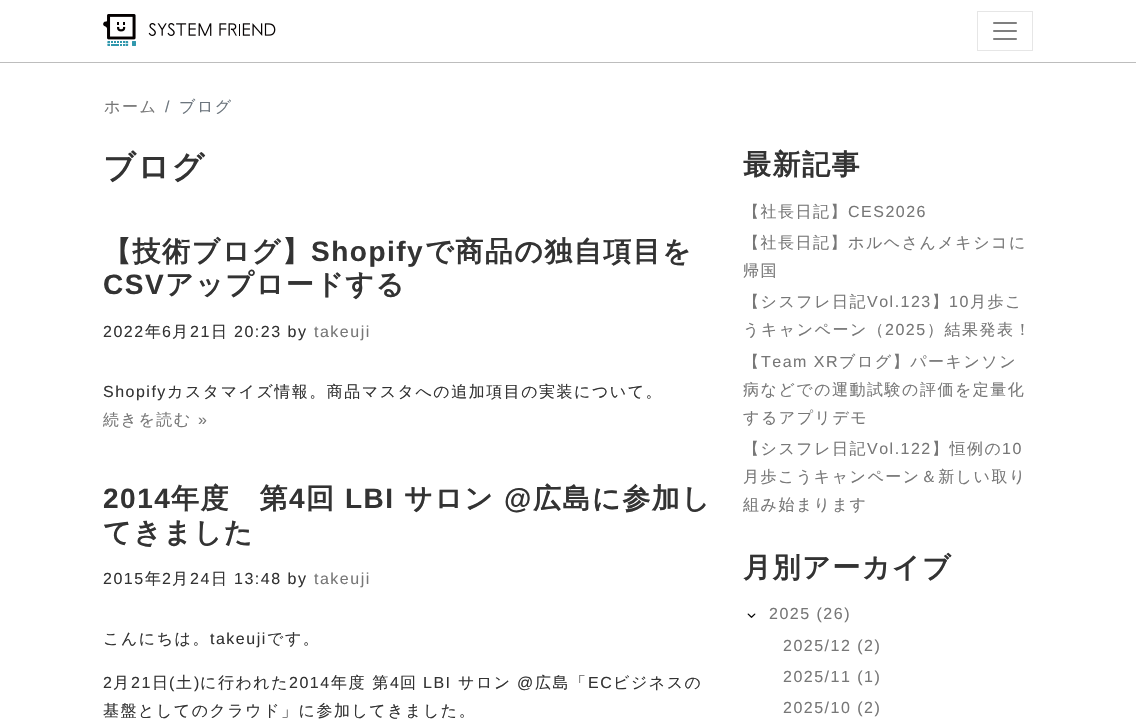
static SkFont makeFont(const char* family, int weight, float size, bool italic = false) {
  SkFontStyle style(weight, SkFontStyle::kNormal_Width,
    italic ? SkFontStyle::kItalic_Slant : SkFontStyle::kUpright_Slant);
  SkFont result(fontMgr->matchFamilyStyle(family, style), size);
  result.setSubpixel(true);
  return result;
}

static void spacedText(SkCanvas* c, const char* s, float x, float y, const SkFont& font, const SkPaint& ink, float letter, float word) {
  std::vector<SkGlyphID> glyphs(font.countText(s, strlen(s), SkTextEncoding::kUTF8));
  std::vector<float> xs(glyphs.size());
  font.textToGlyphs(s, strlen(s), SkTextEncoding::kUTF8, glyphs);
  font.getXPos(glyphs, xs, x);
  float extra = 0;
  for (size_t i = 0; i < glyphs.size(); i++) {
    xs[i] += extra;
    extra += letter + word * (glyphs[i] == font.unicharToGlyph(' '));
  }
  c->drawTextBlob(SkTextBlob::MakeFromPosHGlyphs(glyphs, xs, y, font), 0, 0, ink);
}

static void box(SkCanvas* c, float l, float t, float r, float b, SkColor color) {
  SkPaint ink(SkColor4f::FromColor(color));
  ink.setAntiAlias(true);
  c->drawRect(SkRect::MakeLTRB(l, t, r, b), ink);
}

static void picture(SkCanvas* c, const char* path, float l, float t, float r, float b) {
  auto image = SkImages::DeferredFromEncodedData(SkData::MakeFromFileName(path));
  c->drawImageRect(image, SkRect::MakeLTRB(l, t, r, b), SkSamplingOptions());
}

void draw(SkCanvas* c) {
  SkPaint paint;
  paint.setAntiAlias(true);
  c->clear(0xffffffff);
  box(c, 0, 62, 1136, 63, 0xffbdbdbd);
  picture(c, "img_01.png", 103, 14, 136, 46);
  picture(c, "img_02.png", 148, 23, 276, 36);
  paint.setStyle(SkPaint::kStroke_Style);
  paint.setStrokeWidth(1);
  paint.setColor(0xffe6e6e6);
  c->drawRect(SkRect::MakeLTRB(977.5f, 11.5f, 1032.5f, 50.5f), paint);
  picture(c, "img_03.png", 993, 22, 1017, 40);
  SkFont face1 = makeFont("WenQuanYi Zen Hei", 500, 16);
  paint.setStyle(SkPaint::kFill_Style);
  paint.setColor(0xff777777);
  spacedText(c, "ホーム", 104, 112, face1, paint, 1.5f, 0);
  SkFont face2 = makeFont("Liberation Sans", 400, 16);
  paint.setColor(0xff6c757d);
  spacedText(c, "/", 165, 112, face2, paint, 1.5f, 0);
  spacedText(c, "ブログ", 179, 112, face1, paint, 1.5f, 0);
  SkFont face3 = makeFont("WenQuanYi Zen Hei", 700, 32);
  paint.setColor(0xff333333);
  spacedText(c, "ブログ", 103, 178, face3, paint, 1.5f, 0);
  SkFont face4 = makeFont("WenQuanYi Zen Hei", 700, 28);
  spacedText(c, "【技術ブログ】", 103, 261, face4, paint, 1.5f, 0);
  SkFont face5 = makeFont("Liberation Sans", 700, 28);
  spacedText(c, "Shopify", 311, 261, face5, paint, 1.5f, 0);
  spacedText(c, "で商品の独自項目を", 425, 261, face4, paint, 1.5f, 0);
  spacedText(c, "CSV", 103, 294, face5, paint, 1.5f, 0);
  spacedText(c, "アップロードする", 165, 294, face4, paint, 1.5f, 0);
  spacedText(c, "2022", 103, 337, face2, paint, 1.5f, 0);
  spacedText(c, "年", 145, 337, face1, paint, 1.5f, 0);
  spacedText(c, "6", 162, 337, face2, paint, 1.5f, 0);
  spacedText(c, "月", 172, 337, face1, paint, 1.5f, 0);
  spacedText(c, "21", 190, 337, face2, paint, 1.5f, 0);
  spacedText(c, "日", 211, 337, face1, paint, 1.5f, 0);
  spacedText(c, "20:23 by", 234, 337, face2, paint, 1.5f, 0);
  paint.setColor(0xff777777);
  spacedText(c, "takeuji", 314, 337, face2, paint, 1.5f, 0);
  paint.setColor(0xff333333);
  spacedText(c, "Shopify", 103, 397, face2, paint, 1.5f, 0);
  spacedText(c, "カスタマイズ情報。商品マスタへの追加項目の実装について。", 167, 397, face1, paint, 1.5f, 0);
  paint.setColor(0xff777777);
  spacedText(c, "続きを読む", 103, 425, face1, paint, 1.5f, 0);
  spacedText(c, "»", 198, 425, face2, paint, 1.5f, 0);
  paint.setColor(0xff333333);
  spacedText(c, "2014", 103, 508, face5, paint, 1.5f, 0);
  spacedText(c, "年度　第", 171, 508, face4, paint, 1.5f, 0);
  spacedText(c, "4", 289, 508, face5, paint, 1.5f, 0);
  spacedText(c, "回", 306, 508, face4, paint, 1.5f, 0);
  spacedText(c, "LBI", 345, 508, face5, paint, 1.5f, 0);
  spacedText(c, "サロン", 404, 508, face4, paint, 1.5f, 0);
  spacedText(c, "@", 504, 508, face5, paint, 1.5f, 0);
  spacedText(c, "広島に参加し", 533, 508, face4, paint, 1.5f, 0);
  spacedText(c, "てきました", 103, 542, face4, paint, 1.5f, 0);
  spacedText(c, "2015", 103, 584, face2, paint, 1.5f, 0);
  spacedText(c, "年", 145, 584, face1, paint, 1.5f, 0);
  spacedText(c, "2", 162, 584, face2, paint, 1.5f, 0);
  spacedText(c, "月", 172, 584, face1, paint, 1.5f, 0);
  spacedText(c, "24", 190, 584, face2, paint, 1.5f, 0);
  spacedText(c, "日", 211, 584, face1, paint, 1.5f, 0);
  spacedText(c, "13:48 by", 234, 584, face2, paint, 1.5f, 0);
  paint.setColor(0xff777777);
  spacedText(c, "takeuji", 314, 584, face2, paint, 1.5f, 0);
  paint.setColor(0xff333333);
  spacedText(c, "こんにちは。", 103, 644, face1, paint, 1.5f, 0);
  spacedText(c, "takeuji", 210, 644, face2, paint, 1.5f, 0);
  spacedText(c, "です。", 267, 644, face1, paint, 1.5f, 0);
  spacedText(c, "2", 103, 688, face2, paint, 1.5f, 0);
  spacedText(c, "月", 113, 688, face1, paint, 1.5f, 0);
  spacedText(c, "21", 131, 688, face2, paint, 1.5f, 0);
  spacedText(c, "日", 152, 688, face1, paint, 1.5f, 0);
  spacedText(c, "(", 169, 688, face2, paint, 1.5f, 0);
  spacedText(c, "土", 176, 688, face1, paint, 1.5f, 0);
  spacedText(c, ")", 194, 688, face2, paint, 1.5f, 0);
  spacedText(c, "に行われた", 200, 688, face1, paint, 1.5f, 0);
  spacedText(c, "2014", 289, 688, face2, paint, 1.5f, 0);
  spacedText(c, "年度 第", 331, 688, face1, paint, 1.5f, 0);
  spacedText(c, "4", 390, 688, face2, paint, 1.5f, 0);
  spacedText(c, "回", 400, 688, face1, paint, 1.5f, 0);
  spacedText(c, "LBI", 423, 688, face2, paint, 1.5f, 0);
  spacedText(c, "サロン", 458, 688, face1, paint, 1.5f, 0);
  spacedText(c, "@", 517, 688, face2, paint, 1.5f, 0);
  spacedText(c, "広島「", 535, 688, face1, paint, 1.5f, 0);
  spacedText(c, "EC", 588, 688, face2, paint, 1.5f, 0);
  spacedText(c, "ビジネスの", 613, 688, face1, paint, 1.5f, 0);
  spacedText(c, "基盤としてのクラウド」に参加してきました。", 103, 716, face1, paint, 1.5f, 0);
  spacedText(c, "最新記事", 743, 174, face4, paint, 1.5f, 0);
  paint.setColor(0xff777777);
  spacedText(c, "【社長日記】", 743, 217, face1, paint, 1.5f, 0);
  spacedText(c, "CES2026", 848, 217, face2, paint, 1.5f, 0);
  spacedText(c, "【社長日記】ホルヘさんメキシコに", 743, 248, face1, paint, 1.5f, 0);
  spacedText(c, "帰国", 743, 276, face1, paint, 1.5f, 0);
  spacedText(c, "【シスフレ日記", 743, 307, face1, paint, 1.5f, 0);
  spacedText(c, "Vol.123", 867, 307, face2, paint, 1.5f, 0);
  spacedText(c, "】", 932, 307, face1, paint, 1.5f, 0);
  spacedText(c, "10", 949, 307, face2, paint, 1.5f, 0);
  spacedText(c, "月歩こ", 970, 307, face1, paint, 1.5f, 0);
  spacedText(c, "うキャンペーン（", 743, 335, face1, paint, 1.5f, 0);
  spacedText(c, "2025", 885, 335, face2, paint, 1.5f, 0);
  spacedText(c, "）結果発表！", 927, 335, face1, paint, 1.5f, 0);
  spacedText(c, "【", 743, 367, face1, paint, 1.5f, 0);
  spacedText(c, "Team XR", 761, 367, face2, paint, 1.5f, 0);
  spacedText(c, "ブログ】パーキンソン", 839, 367, face1, paint, 1.5f, 0);
  spacedText(c, "病などでの運動試験の評価を定量化", 743, 395, face1, paint, 1.5f, 0);
  spacedText(c, "するアプリデモ", 743, 423, face1, paint, 1.5f, 0);
  spacedText(c, "【シスフレ日記", 743, 454, face1, paint, 1.5f, 0);
  spacedText(c, "Vol.122", 867, 454, face2, paint, 1.5f, 0);
  spacedText(c, "】恒例の", 932, 454, face1, paint, 1.5f, 0);
  spacedText(c, "10", 1002, 454, face2, paint, 1.5f, 0);
  spacedText(c, "月歩こうキャンペーン＆新しい取り", 743, 482, face1, paint, 1.5f, 0);
  spacedText(c, "組み始まります", 743, 510, face1, paint, 1.5f, 0);
  paint.setColor(0xff333333);
  spacedText(c, "月別アーカイブ", 743, 577, face4, paint, 1.5f, 0);
  picture(c, "img_04.png", 747, 613, 756, 618);
  paint.setColor(0xff777777);
  spacedText(c, "2025 (26)", 769, 619, face2, paint, 1.5f, 0);
  spacedText(c, "2025/12 (2)", 783, 651, face2, paint, 1.5f, 0);
  spacedText(c, "2025/11 (1)", 783, 682, face2, paint, 1.5f, 0);
  spacedText(c, "2025/10 (2)", 783, 713, face2, paint, 1.5f, 0);
}
